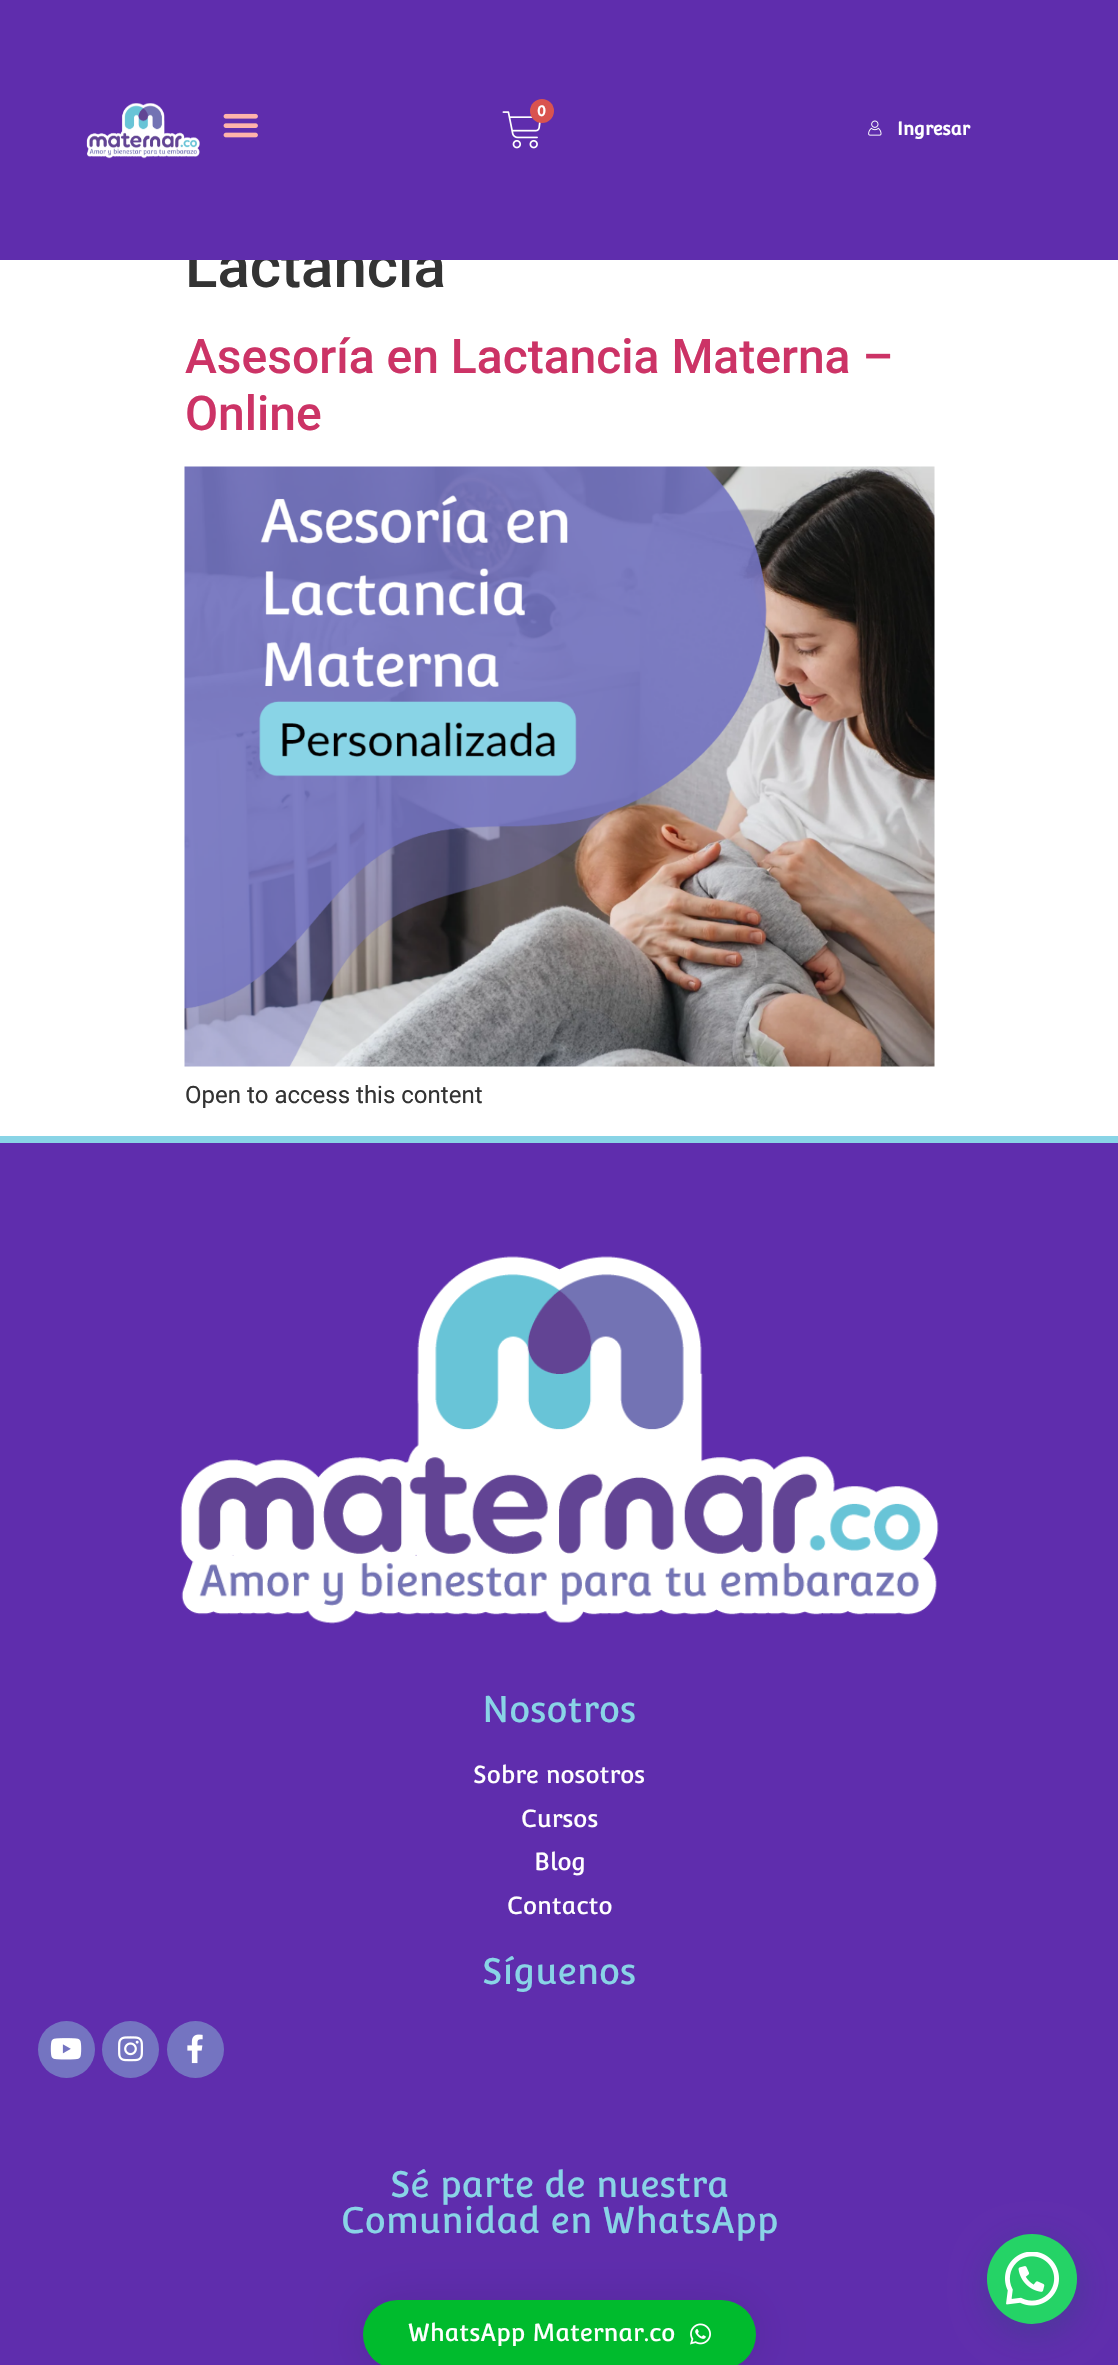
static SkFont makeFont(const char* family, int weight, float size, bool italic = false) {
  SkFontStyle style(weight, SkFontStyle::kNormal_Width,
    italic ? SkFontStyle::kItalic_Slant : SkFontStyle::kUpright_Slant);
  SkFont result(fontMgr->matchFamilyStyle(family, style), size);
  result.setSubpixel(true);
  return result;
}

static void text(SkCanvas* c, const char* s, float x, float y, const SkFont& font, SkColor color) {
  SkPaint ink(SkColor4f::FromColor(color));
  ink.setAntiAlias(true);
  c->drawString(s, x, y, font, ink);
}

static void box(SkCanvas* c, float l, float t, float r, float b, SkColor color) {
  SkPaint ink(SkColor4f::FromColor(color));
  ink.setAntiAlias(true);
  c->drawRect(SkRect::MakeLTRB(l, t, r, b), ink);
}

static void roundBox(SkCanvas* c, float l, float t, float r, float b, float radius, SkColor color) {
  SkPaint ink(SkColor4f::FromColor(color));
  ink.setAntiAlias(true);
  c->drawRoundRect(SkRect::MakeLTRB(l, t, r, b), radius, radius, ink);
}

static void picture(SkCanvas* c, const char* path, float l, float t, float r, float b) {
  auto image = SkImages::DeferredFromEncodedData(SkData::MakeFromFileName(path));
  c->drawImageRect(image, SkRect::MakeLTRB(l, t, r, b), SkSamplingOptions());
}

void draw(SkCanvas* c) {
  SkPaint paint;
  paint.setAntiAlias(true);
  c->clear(0xffffffff);
  SkFont face1 = makeFont("Roboto", 500, 60);
  text(c, "Lactancia", 185, 287, face1, 0xff333333);
  box(c, 0, 0, 1118, 260, 0xff5f2dad);
  picture(c, "img_01.png", 86, 103, 200, 159);
  picture(c, "img_02.png", 223, 113, 258, 138);
  picture(c, "img_03.png", 502, 111, 541, 149);
  paint.setColor(0xffd9534f);
  c->drawCircle(542, 111, 12, paint);
  SkFont face2 = makeFont("Convergence", 700, 15);
  text(c, "0", 537, 116, face2, 0xffffffff);
  picture(c, "img_04.png", 868, 120, 882, 136);
  SkFont face3 = makeFont("Convergence", 700, 18);
  text(c, "Ingresar", 897, 135, face3, 0xffffffff);
  SkFont face4 = makeFont("Roboto", 500, 48);
  text(c, "Asesoría en Lactancia Materna –", 185, 373, face4, 0xffcc3366);
  text(c, "Online", 185, 430, face4, 0xffcc3366);
  picture(c, "img_05.png", 184, 466, 935, 1067);
  SkFont face5 = makeFont("Roboto", 400, 24);
  text(c, "Open to access this content", 185, 1103, face5, 0xff333333);
  box(c, 0, 1143, 1118, 2365, 0xff5f2dad);
  box(c, 0, 1136, 1118, 1143, 0xff89d4e6);
  picture(c, "img_06.png", 180, 1256, 939, 1624);
  SkFont face6 = makeFont("Convergence", 400, 36);
  text(c, "Nosotros", 482, 1722, face6, 0xff89d4e6);
  SkFont face7 = makeFont("Convergence", 400, 24);
  text(c, "Sobre nosotros", 473, 1783, face7, 0xffffffff);
  text(c, "Cursos", 521, 1827, face7, 0xffffffff);
  text(c, "Blog", 534, 1870, face7, 0xffffffff);
  text(c, "Contacto", 507, 1914, face7, 0xffffffff);
  text(c, "Síguenos", 482, 1984, face6, 0xff89d4e6);
  paint.setColor(0xff7474c1);
  c->drawCircle(66.5f, 2049.5f, 28.5f, paint);
  picture(c, "img_07.png", 50, 2038, 82, 2060);
  c->drawCircle(130.5f, 2049.5f, 28.5f, paint);
  picture(c, "img_08.png", 118, 2036, 143, 2062);
  c->drawCircle(195.5f, 2049.5f, 28.5f, paint);
  picture(c, "img_09.png", 187, 2034, 203, 2064);
  text(c, "Sé parte de nuestra", 390, 2197, face6, 0xff89d4e6);
  text(c, "Comunidad en WhatsApp", 341, 2233, face6, 0xff89d4e6);
  paint.setColor(0x1a000000);
  paint.setMaskFilter(SkMaskFilter::MakeBlur(kNormal_SkBlurStyle, 22.5f));
  c->drawRoundRect(SkRect::MakeLTRB(363, 2300, 756, 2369), 34.5f, 34.5f, paint);
  paint.setMaskFilter(nullptr);
  roundBox(c, 363, 2300, 756, 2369, 34.5f, 0xff00bb2d);
  text(c, "WhatsApp Maternar.co", 408, 2341, face7, 0xffffffff);
  picture(c, "img_10.png", 690, 2323, 711, 2345);
  paint.setColor(0x3d075e54);
  paint.setMaskFilter(SkMaskFilter::MakeBlur(kNormal_SkBlurStyle, 18));
  c->drawRoundRect(SkRect::MakeLTRB(989, 2243, 1079, 2333), 45, 45, paint);
  paint.setMaskFilter(nullptr);
  paint.setColor(0xff25d366);
  c->drawCircle(1032, 2279, 45, paint);
  picture(c, "img_11.png", 1005, 2252, 1059, 2306);
}
